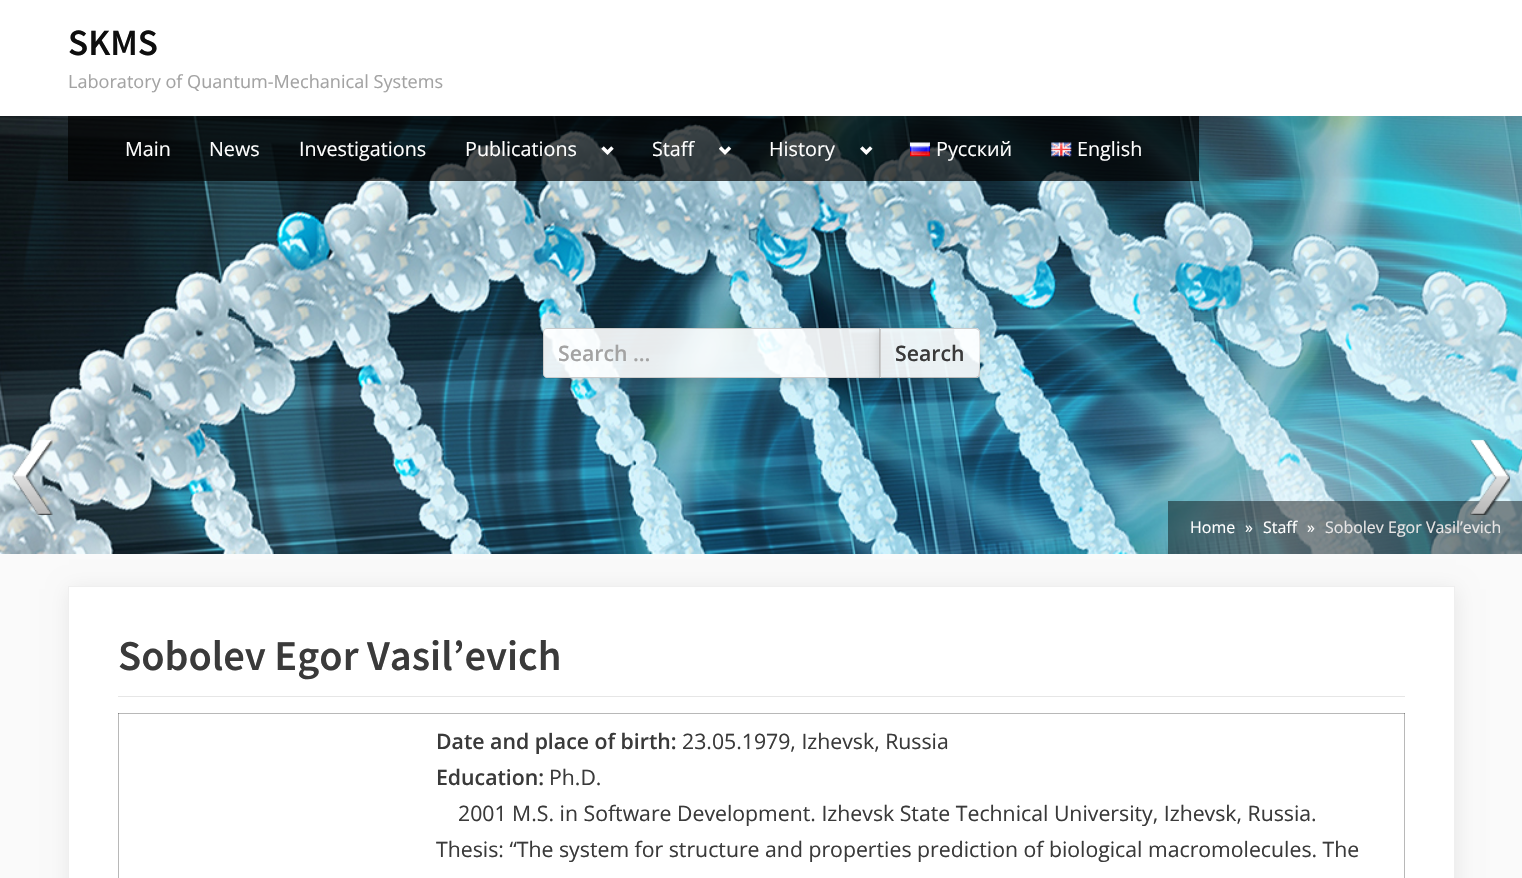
static SkFont makeFont(const char* family, int weight, float size, bool italic = false) {
  SkFontStyle style(weight, SkFontStyle::kNormal_Width,
    italic ? SkFontStyle::kItalic_Slant : SkFontStyle::kUpright_Slant);
  SkFont result(fontMgr->matchFamilyStyle(family, style), size);
  result.setSubpixel(true);
  return result;
}

static void text(SkCanvas* c, const char* s, float x, float y, const SkFont& font, SkColor color) {
  SkPaint ink(SkColor4f::FromColor(color));
  ink.setAntiAlias(true);
  c->drawString(s, x, y, font, ink);
}

static void box(SkCanvas* c, float l, float t, float r, float b, SkColor color) {
  SkPaint ink(SkColor4f::FromColor(color));
  ink.setAntiAlias(true);
  c->drawRect(SkRect::MakeLTRB(l, t, r, b), ink);
}

static void picture(SkCanvas* c, const char* path, float l, float t, float r, float b) {
  auto image = SkImages::DeferredFromEncodedData(SkData::MakeFromFileName(path));
  c->drawImageRect(image, SkRect::MakeLTRB(l, t, r, b), SkSamplingOptions());
}

void draw(SkCanvas* c) {
  SkPaint paint;
  paint.setAntiAlias(true);
  c->clear(0xfffafafa);
  box(c, 0, 0, 1522, 116, 0xffffffff);
  SkFont face1 = makeFont("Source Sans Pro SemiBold", 600, 37);
  text(c, "SKMS", 68, 55, face1, 0xff0e0e0e);
  SkFont face2 = makeFont("Open Sans", 400, 18.1f);
  text(c, "Laboratory of Quantum-Mechanical Systems", 68, 88, face2, 0xffa3a3a3);
  picture(c, "img_01.png", 0, 116, 1522, 554);
  box(c, 68, 116, 1199, 181, 0xb3000000);
  SkFont face3 = makeFont("Open Sans", 400, 19.75f);
  text(c, "Main", 125, 156, face3, 0xffffffff);
  text(c, "News", 209, 156, face3, 0xffffffff);
  text(c, "Investigations", 299, 156, face3, 0xffffffff);
  text(c, "Publications", 465, 156, face3, 0xffffffff);
  picture(c, "img_02.png", 601, 146, 614, 155);
  text(c, "Staff", 652, 156, face3, 0xffffffff);
  picture(c, "img_03.png", 719, 146, 732, 155);
  text(c, "History", 769, 156, face3, 0xffffffff);
  picture(c, "img_04.png", 860, 146, 873, 155);
  picture(c, "img_05.png", 910, 142, 930, 157);
  text(c, "Русский", 936, 156, face3, 0xffffffff);
  picture(c, "img_06.png", 1051, 142, 1072, 157);
  text(c, "English", 1077, 156, face3, 0xffffffff);
  c->save();
  c->clipPath(SkPathBuilder(SkPathFillType::kEvenOdd).moveTo(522, 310).lineTo(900, 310).lineTo(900, 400).lineTo(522, 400).close().moveTo(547, 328).lineTo(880, 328).lineTo(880, 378).lineTo(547, 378).cubicTo(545, 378, 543, 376, 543, 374).lineTo(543, 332).cubicTo(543, 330, 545, 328, 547, 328).close().detach(), true);
  paint.setColor(0x26000000);
  paint.setMaskFilter(SkMaskFilter::MakeBlur(kNormal_SkBlurStyle, 6));
  c->drawRoundRect(SkRect::MakeLTRB(541, 329, 881, 381), 5, 5, paint);
  paint.setMaskFilter(nullptr);
  c->restore();
  paint.setColor(0xe6ffffff);
  c->drawPath(SkPathBuilder().moveTo(547, 328.5f).lineTo(879.5f, 328.5f).lineTo(879.5f, 377.5f).lineTo(547, 377.5f).cubicTo(545, 377.5f, 543.5f, 376, 543.5f, 374).lineTo(543.5f, 332).cubicTo(543.5f, 330, 545, 328.5f, 547, 328.5f).close().detach(), paint);
  paint.setStyle(SkPaint::kStroke_Style);
  paint.setStrokeWidth(1);
  paint.setColor(0xffcccccc);
  c->drawPath(SkPathBuilder().moveTo(547, 328.5f).lineTo(879.5f, 328.5f).lineTo(879.5f, 377.5f).lineTo(547, 377.5f).cubicTo(545, 377.5f, 543.5f, 376, 543.5f, 374).lineTo(543.5f, 332).cubicTo(543.5f, 330, 545, 328.5f, 547, 328.5f).close().detach(), paint);
  SkFont face4 = makeFont("Open Sans", 600, 21.25f);
  text(c, "Search …", 558, 361, face4, 0xffa3a3a3);
  c->save();
  c->clipPath(SkPathBuilder(SkPathFillType::kEvenOdd).moveTo(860, 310).lineTo(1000, 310).lineTo(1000, 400).lineTo(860, 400).close().moveTo(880, 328).lineTo(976, 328).cubicTo(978, 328, 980, 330, 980, 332).lineTo(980, 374).cubicTo(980, 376, 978, 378, 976, 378).lineTo(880, 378).close().detach(), true);
  paint.setStyle(SkPaint::kFill_Style);
  paint.setColor(0x26000000);
  paint.setMaskFilter(SkMaskFilter::MakeBlur(kNormal_SkBlurStyle, 6));
  c->drawRoundRect(SkRect::MakeLTRB(879, 329, 981, 381), 5, 5, paint);
  paint.setMaskFilter(nullptr);
  c->restore();
  paint.setColor(0xe6ffffff);
  c->drawPath(SkPathBuilder().moveTo(880, 328).lineTo(976, 328).cubicTo(978, 328, 980, 330, 980, 332).lineTo(980, 374).cubicTo(980, 376, 978, 378, 976, 378).lineTo(880, 378).close().detach(), paint);
  paint.setColor(0xffcccccc);
  c->drawPath(SkPathBuilder().moveTo(979, 329).lineTo(976, 328).lineTo(880, 328).lineTo(881, 329).lineTo(976, 329).lineTo(978, 330).close().detach(), paint);
  c->drawPath(SkPathBuilder().moveTo(979, 329).cubicTo(979, 330, 980, 331, 980, 332).lineTo(980, 374).cubicTo(980, 375, 980, 376, 979, 377).lineTo(978, 376).cubicTo(980, 375, 980, 335, 979, 331).lineTo(978, 330).close().detach(), paint);
  paint.setColor(0xffbbbbbb);
  c->drawPath(SkPathBuilder().moveTo(977, 378).lineTo(880, 378).lineTo(881, 377).lineTo(976, 377).lineTo(978, 376).lineTo(979, 377).close().detach(), paint);
  paint.setColor(0xffcccccc);
  c->drawPath(SkPathBuilder().moveTo(881, 329).lineTo(880, 328).lineTo(880, 378).lineTo(881, 377).close().detach(), paint);
  text(c, "Search", 895, 361, face4, 0xff3a3a3a);
  box(c, 1168, 501, 1522, 554, 0x73000000);
  SkFont face5 = makeFont("Open Sans", 400, 16);
  text(c, "Home", 1190, 533, face5, 0xffffffff);
  text(c, "»", 1245, 533, face5, 0xffffffff);
  text(c, "Staff", 1263, 533, face5, 0xffffffff);
  text(c, "»", 1307, 533, face5, 0xffffffff);
  text(c, "Sobolev Egor Vasil’evich", 1325, 533, face5, 0xffe7e5e5);
  paint.setColor(0x14000000);
  paint.setMaskFilter(SkMaskFilter::MakeBlur(kNormal_SkBlurStyle, 10));
  c->drawRect(SkRect::MakeLTRB(69, 589, 1456, 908), paint);
  paint.setMaskFilter(nullptr);
  box(c, 69, 587, 1454, 878, 0xffffffff);
  box(c, 118, 713, 119, 878, 0xffb8b8b8);
  box(c, 1404, 713, 1405, 878, 0xffb8b8b8);
  paint.setStyle(SkPaint::kStroke_Style);
  paint.setColor(0xffefefef);
  c->drawRect(SkRect::MakeLTRB(68.5f, 586.5f, 1454.5f, 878.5f), paint);
  SkFont face6 = makeFont("Source Sans Pro SemiBold", 600, 42.5f);
  text(c, "Sobolev Egor Vasil’evich", 118, 670, face6, 0xff3a3a3a);
  box(c, 118, 696, 1405, 697, 0xffe6e6e6);
  box(c, 118, 713, 1405, 714, 0xffb8b8b8);
  box(c, 118, 713, 119, 714, 0xff858585);
  box(c, 1404, 713, 1405, 714, 0xff858585);
  text(c, "Date and place of birth:", 436, 749, face4, 0xff3a3a3a);
  SkFont face7 = makeFont("Open Sans", 400, 21.25f);
  text(c, "23.05.1979, Izhevsk, Russia", 682, 749, face7, 0xff3a3a3a);
  text(c, "Education:", 436, 785, face4, 0xff3a3a3a);
  text(c, "Ph.D.", 549, 785, face7, 0xff3a3a3a);
  text(c, "2001 M.S. in Software Development. Izhevsk State Technical University, Izhevsk, Russia.", 458, 821, face7, 0xff3a3a3a);
  text(c, "Thesis: “The system for structure and properties prediction of biological macromolecules. The", 436, 857, face7, 0xff3a3a3a);
  picture(c, "img_07.png", 12, 440, 53, 515);
  picture(c, "img_08.png", 1470, 439, 1510, 515);
}
